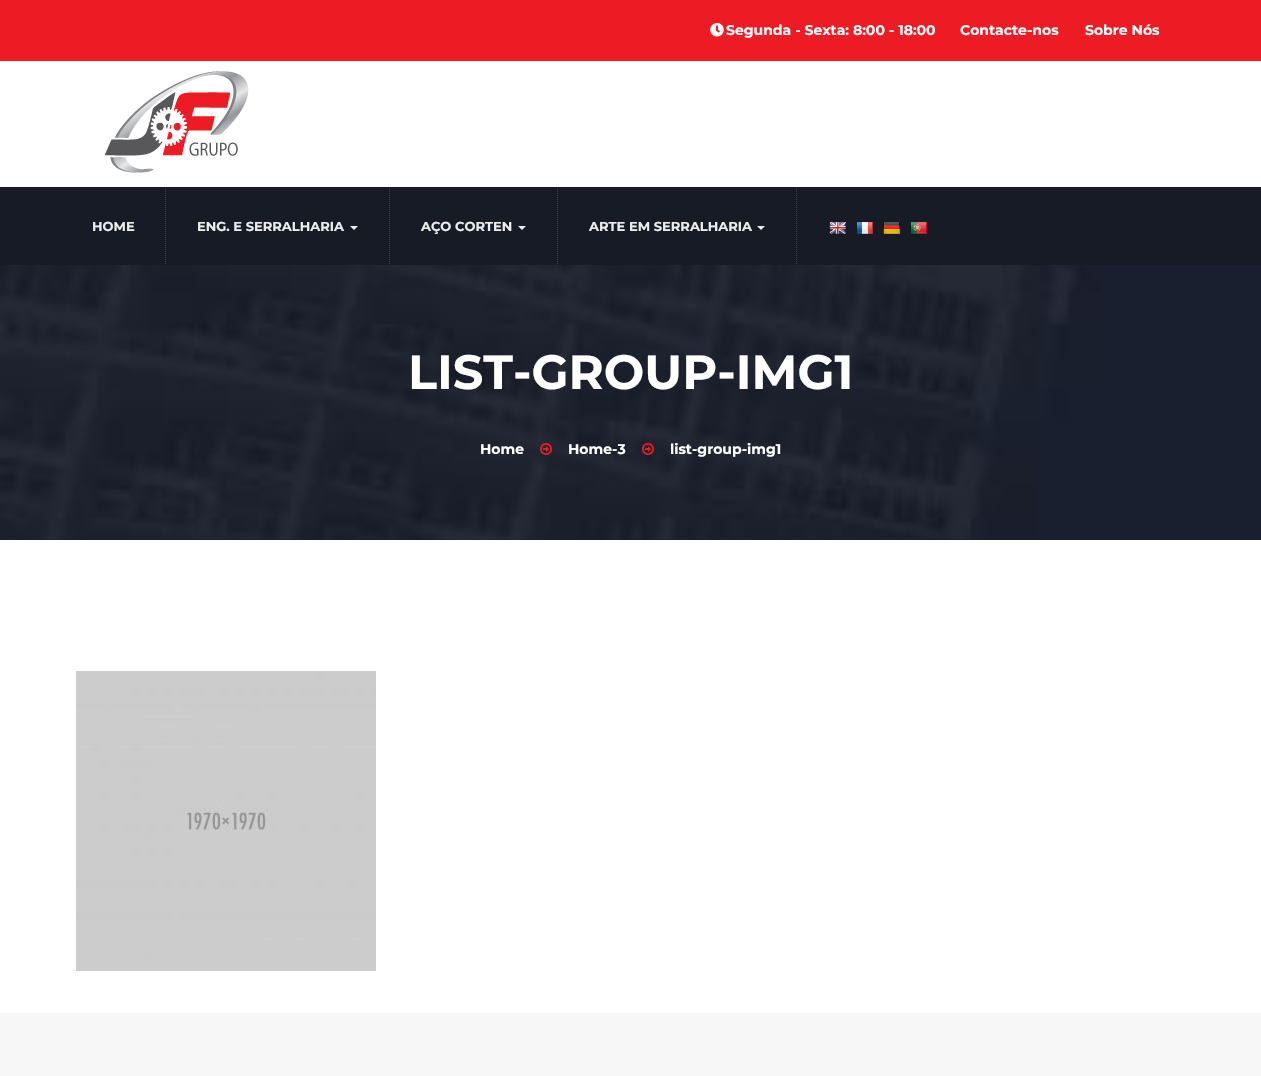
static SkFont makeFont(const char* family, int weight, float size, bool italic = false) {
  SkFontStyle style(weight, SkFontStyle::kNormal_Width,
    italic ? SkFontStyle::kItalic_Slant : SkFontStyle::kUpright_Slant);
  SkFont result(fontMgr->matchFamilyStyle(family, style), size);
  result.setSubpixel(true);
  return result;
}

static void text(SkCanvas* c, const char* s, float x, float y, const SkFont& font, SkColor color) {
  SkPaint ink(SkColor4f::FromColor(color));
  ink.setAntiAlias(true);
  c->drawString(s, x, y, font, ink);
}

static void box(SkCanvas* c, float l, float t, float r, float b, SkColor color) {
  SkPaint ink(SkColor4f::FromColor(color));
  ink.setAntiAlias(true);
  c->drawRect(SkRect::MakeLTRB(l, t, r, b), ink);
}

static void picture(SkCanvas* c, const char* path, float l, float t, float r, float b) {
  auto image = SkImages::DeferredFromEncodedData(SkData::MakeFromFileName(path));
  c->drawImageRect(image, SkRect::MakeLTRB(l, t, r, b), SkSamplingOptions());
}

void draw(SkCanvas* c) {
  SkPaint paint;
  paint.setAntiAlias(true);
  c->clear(0xffffffff);
  box(c, 0, 0, 1261, 61, 0xffed1c24);
  picture(c, "img_01.png", 710, 23, 724, 37);
  SkFont face1 = makeFont("Montserrat", 700, 14);
  text(c, "Segunda - Sexta: 8:00 - 18:00", 726, 35, face1, 0xffffffff);
  text(c, "Contacte-nos", 960, 35, face1, 0xffffffff);
  text(c, "Sobre Nós", 1085, 35, face1, 0xffffffff);
  picture(c, "img_02.png", 104, 71, 249, 173);
  box(c, 0, 187, 1261, 265, 0xff171b26);
  SkFont face2 = makeFont("Montserrat", 700, 13);
  text(c, "HOME", 92, 231, face2, 0xffededed);
  paint.setStyle(SkPaint::kStroke_Style);
  paint.setStrokeWidth(1);
  paint.setColor(0xff3d4048);
  paint.setPathEffect(SkDashPathEffect::Make({{1, 1}}, 0));
  c->drawPath(SkPathBuilder().moveTo(165.5f, 187).lineTo(165.5f, 265).detach(), paint);
  paint.setPathEffect(nullptr);
  text(c, "ENG. E SERRALHARIA", 197, 231, face2, 0xffededed);
  paint.setStyle(SkPaint::kFill_Style);
  paint.setColor(0xffededed);
  c->drawPath(SkPathBuilder().moveTo(350, 226).lineTo(358, 226).lineTo(354, 230).close().detach(), paint);
  paint.setStyle(SkPaint::kStroke_Style);
  paint.setColor(0xff3d4048);
  paint.setPathEffect(SkDashPathEffect::Make({{1, 1}}, 0));
  c->drawPath(SkPathBuilder().moveTo(389.5f, 187).lineTo(389.5f, 265).detach(), paint);
  paint.setPathEffect(nullptr);
  text(c, "AÇO CORTEN", 421, 231, face2, 0xffededed);
  paint.setStyle(SkPaint::kFill_Style);
  paint.setColor(0xffededed);
  c->drawPath(SkPathBuilder().moveTo(518, 226).lineTo(526, 226).lineTo(522, 230).close().detach(), paint);
  paint.setStyle(SkPaint::kStroke_Style);
  paint.setColor(0xff3d4048);
  paint.setPathEffect(SkDashPathEffect::Make({{1, 1}}, 0));
  c->drawPath(SkPathBuilder().moveTo(557.5f, 187).lineTo(557.5f, 265).detach(), paint);
  paint.setPathEffect(nullptr);
  text(c, "ARTE EM SERRALHARIA", 589, 231, face2, 0xffededed);
  paint.setStyle(SkPaint::kFill_Style);
  paint.setColor(0xffededed);
  c->drawPath(SkPathBuilder().moveTo(757, 226).lineTo(765, 226).lineTo(761, 230).close().detach(), paint);
  paint.setStyle(SkPaint::kStroke_Style);
  paint.setColor(0xff3d4048);
  paint.setPathEffect(SkDashPathEffect::Make({{1, 1}}, 0));
  c->drawPath(SkPathBuilder().moveTo(796.5f, 187).lineTo(796.5f, 265).detach(), paint);
  paint.setPathEffect(nullptr);
  picture(c, "img_03.png", 829, 222, 846, 235);
  picture(c, "img_04.png", 856, 222, 873, 235);
  picture(c, "img_05.png", 883, 222, 900, 235);
  picture(c, "img_06.png", 910, 222, 927, 235);
  picture(c, "img_07.png", 0, 265, 1261, 540);
  SkFont face3 = makeFont("Montserrat", 700, 48);
  text(c, "LIST-GROUP-IMG1", 408, 389, face3, 0xffffffff);
  text(c, "Home", 480, 454, face1, 0xffffffff);
  picture(c, "img_08.png", 540, 443, 552, 455);
  text(c, "Home-3", 568, 454, face1, 0xffffffff);
  picture(c, "img_09.png", 642, 443, 654, 455);
  text(c, "list-group-img1", 670, 454, face1, 0xffffffff);
  picture(c, "img_10.png", 76, 671, 376, 971);
  box(c, 0, 1013, 1261, 1076, 0xfff7f7f7);
}
